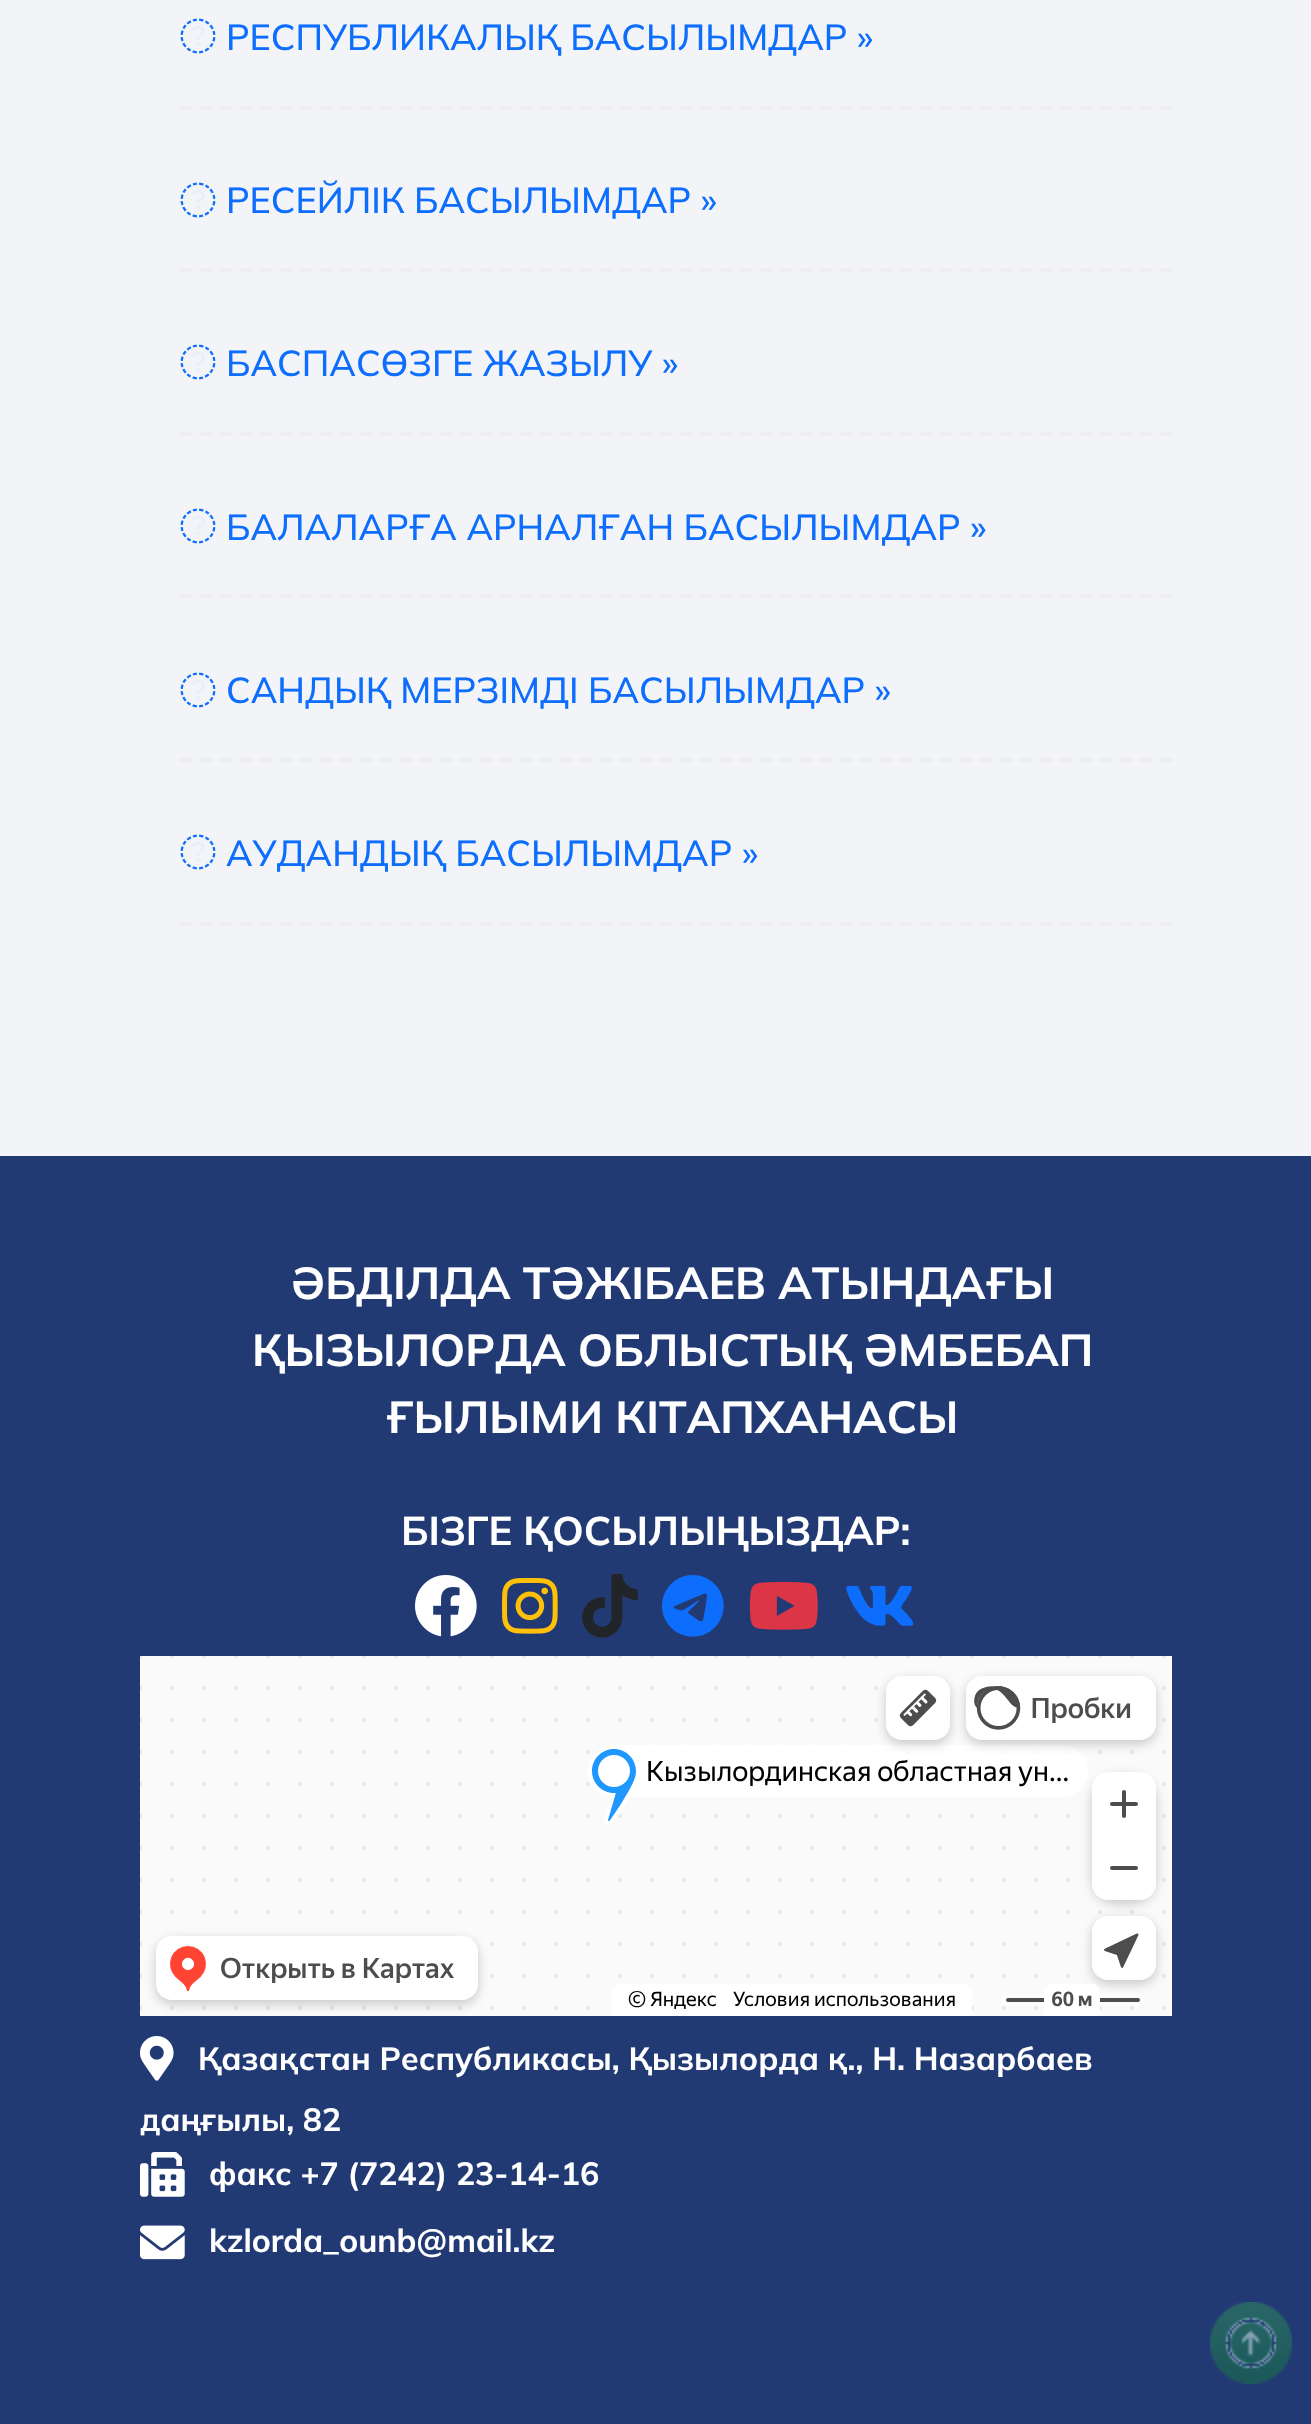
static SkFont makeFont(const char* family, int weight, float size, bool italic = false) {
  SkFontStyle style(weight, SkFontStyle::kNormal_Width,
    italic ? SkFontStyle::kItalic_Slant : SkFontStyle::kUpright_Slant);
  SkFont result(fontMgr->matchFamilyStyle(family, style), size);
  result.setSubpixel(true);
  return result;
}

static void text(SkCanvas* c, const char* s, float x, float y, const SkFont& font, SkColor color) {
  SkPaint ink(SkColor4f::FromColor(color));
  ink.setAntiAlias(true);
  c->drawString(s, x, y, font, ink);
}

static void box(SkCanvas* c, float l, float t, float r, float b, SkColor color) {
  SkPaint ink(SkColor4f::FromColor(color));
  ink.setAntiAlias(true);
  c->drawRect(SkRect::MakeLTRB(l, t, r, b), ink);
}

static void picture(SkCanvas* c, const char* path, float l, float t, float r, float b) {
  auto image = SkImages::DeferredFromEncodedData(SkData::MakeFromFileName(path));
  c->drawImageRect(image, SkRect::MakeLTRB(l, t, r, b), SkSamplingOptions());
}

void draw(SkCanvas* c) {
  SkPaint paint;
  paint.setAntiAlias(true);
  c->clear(0xfff3f4f8);
  paint.setStyle(SkPaint::kStroke_Style);
  paint.setStrokeWidth(4);
  paint.setColor(0xffeeeeee);
  paint.setPathEffect(SkDashPathEffect::Make({{12, 8}}, 0));
  c->drawPath(SkPathBuilder().moveTo(180, 108).lineTo(1172, 108).detach(), paint);
  paint.setPathEffect(nullptr);
  picture(c, "img_01.png", 180, 18, 216, 54);
  SkFont face1 = makeFont("Mulish", 500, 36);
  text(c, "РЕСПУБЛИКАЛЫҚ БАСЫЛЫМДАР »", 226, 50, face1, 0xff0d6efd);
  paint.setPathEffect(SkDashPathEffect::Make({{12, 8}}, 0));
  c->drawPath(SkPathBuilder().moveTo(180, 270).lineTo(1172, 270).detach(), paint);
  paint.setPathEffect(nullptr);
  picture(c, "img_01.png", 180, 182, 216, 218);
  text(c, "РЕСЕЙЛІК БАСЫЛЫМДАР »", 226, 213, face1, 0xff0d6efd);
  paint.setPathEffect(SkDashPathEffect::Make({{12, 8}}, 0));
  c->drawPath(SkPathBuilder().moveTo(180, 434).lineTo(1172, 434).detach(), paint);
  paint.setPathEffect(nullptr);
  picture(c, "img_01.png", 180, 344, 216, 380);
  text(c, "БАСПАСӨЗГЕ ЖАЗЫЛУ »", 226, 376, face1, 0xff0d6efd);
  paint.setPathEffect(SkDashPathEffect::Make({{12, 8}}, 0));
  c->drawPath(SkPathBuilder().moveTo(180, 596).lineTo(1172, 596).detach(), paint);
  paint.setPathEffect(nullptr);
  picture(c, "img_01.png", 180, 508, 216, 544);
  text(c, "БАЛАЛАРҒА АРНАЛҒАН БАСЫЛЫМДАР »", 226, 540, face1, 0xff0d6efd);
  paint.setPathEffect(SkDashPathEffect::Make({{12, 8}}, 0));
  c->drawPath(SkPathBuilder().moveTo(180, 760).lineTo(1172, 760).detach(), paint);
  paint.setPathEffect(nullptr);
  picture(c, "img_01.png", 180, 672, 216, 708);
  text(c, "САНДЫҚ МЕРЗІМДІ БАСЫЛЫМДАР »", 226, 703, face1, 0xff0d6efd);
  paint.setPathEffect(SkDashPathEffect::Make({{12, 8}}, 0));
  c->drawPath(SkPathBuilder().moveTo(180, 924).lineTo(1172, 924).detach(), paint);
  paint.setPathEffect(nullptr);
  picture(c, "img_01.png", 180, 834, 216, 870);
  text(c, "АУДАНДЫҚ БАСЫЛЫМДАР »", 226, 866, face1, 0xff0d6efd);
  box(c, 0, 1156, 1311, 2424, 0xff223a74);
  SkFont face2 = makeFont("Mulish", 700, 44.75f);
  text(c, "ӘБДІЛДА ТӘЖІБАЕВ АТЫНДАҒЫ", 291, 1299, face2, 0xffffffff);
  text(c, "ҚЫЗЫЛОРДА ОБЛЫСТЫҚ ӘМБЕБАП", 252, 1366, face2, 0xffffffff);
  text(c, "ҒЫЛЫМИ КІТАПХАНАСЫ", 386, 1433, face2, 0xffffffff);
  SkFont face3 = makeFont("Mulish", 700, 40);
  text(c, "БІЗГЕ ҚОСЫЛЫҢЫЗДАР:", 401, 1545, face3, 0xffffffff);
  picture(c, "img_02.png", 415, 1575, 477, 1637);
  picture(c, "img_03.png", 502, 1577, 558, 1634);
  picture(c, "img_04.png", 582, 1574, 638, 1638);
  picture(c, "img_05.png", 662, 1575, 724, 1637);
  picture(c, "img_06.png", 749, 1582, 818, 1630);
  picture(c, "img_07.png", 846, 1585, 914, 1626);
  picture(c, "img_08.png", 140, 1656, 1172, 2016);
  picture(c, "img_09.png", 140, 2036, 174, 2081);
  SkFont face4 = makeFont("Mulish", 700, 32);
  text(c, "Қазақстан Республикасы, Қызылорда қ., Н. Назарбаев", 198, 2070, face4, 0xffffffff);
  text(c, "даңғылы, 82", 140, 2131, face4, 0xffffffff);
  picture(c, "img_10.png", 140, 2152, 185, 2197);
  text(c, "факс +7 (7242) 23-14-16", 209, 2185, face4, 0xffffffff);
  picture(c, "img_11.png", 140, 2225, 185, 2260);
  text(c, "kzlorda_ounb@mail.kz", 209, 2252, face4, 0xffffffff);
  picture(c, "img_12.png", 1210, 2302, 1292, 2384);
}
